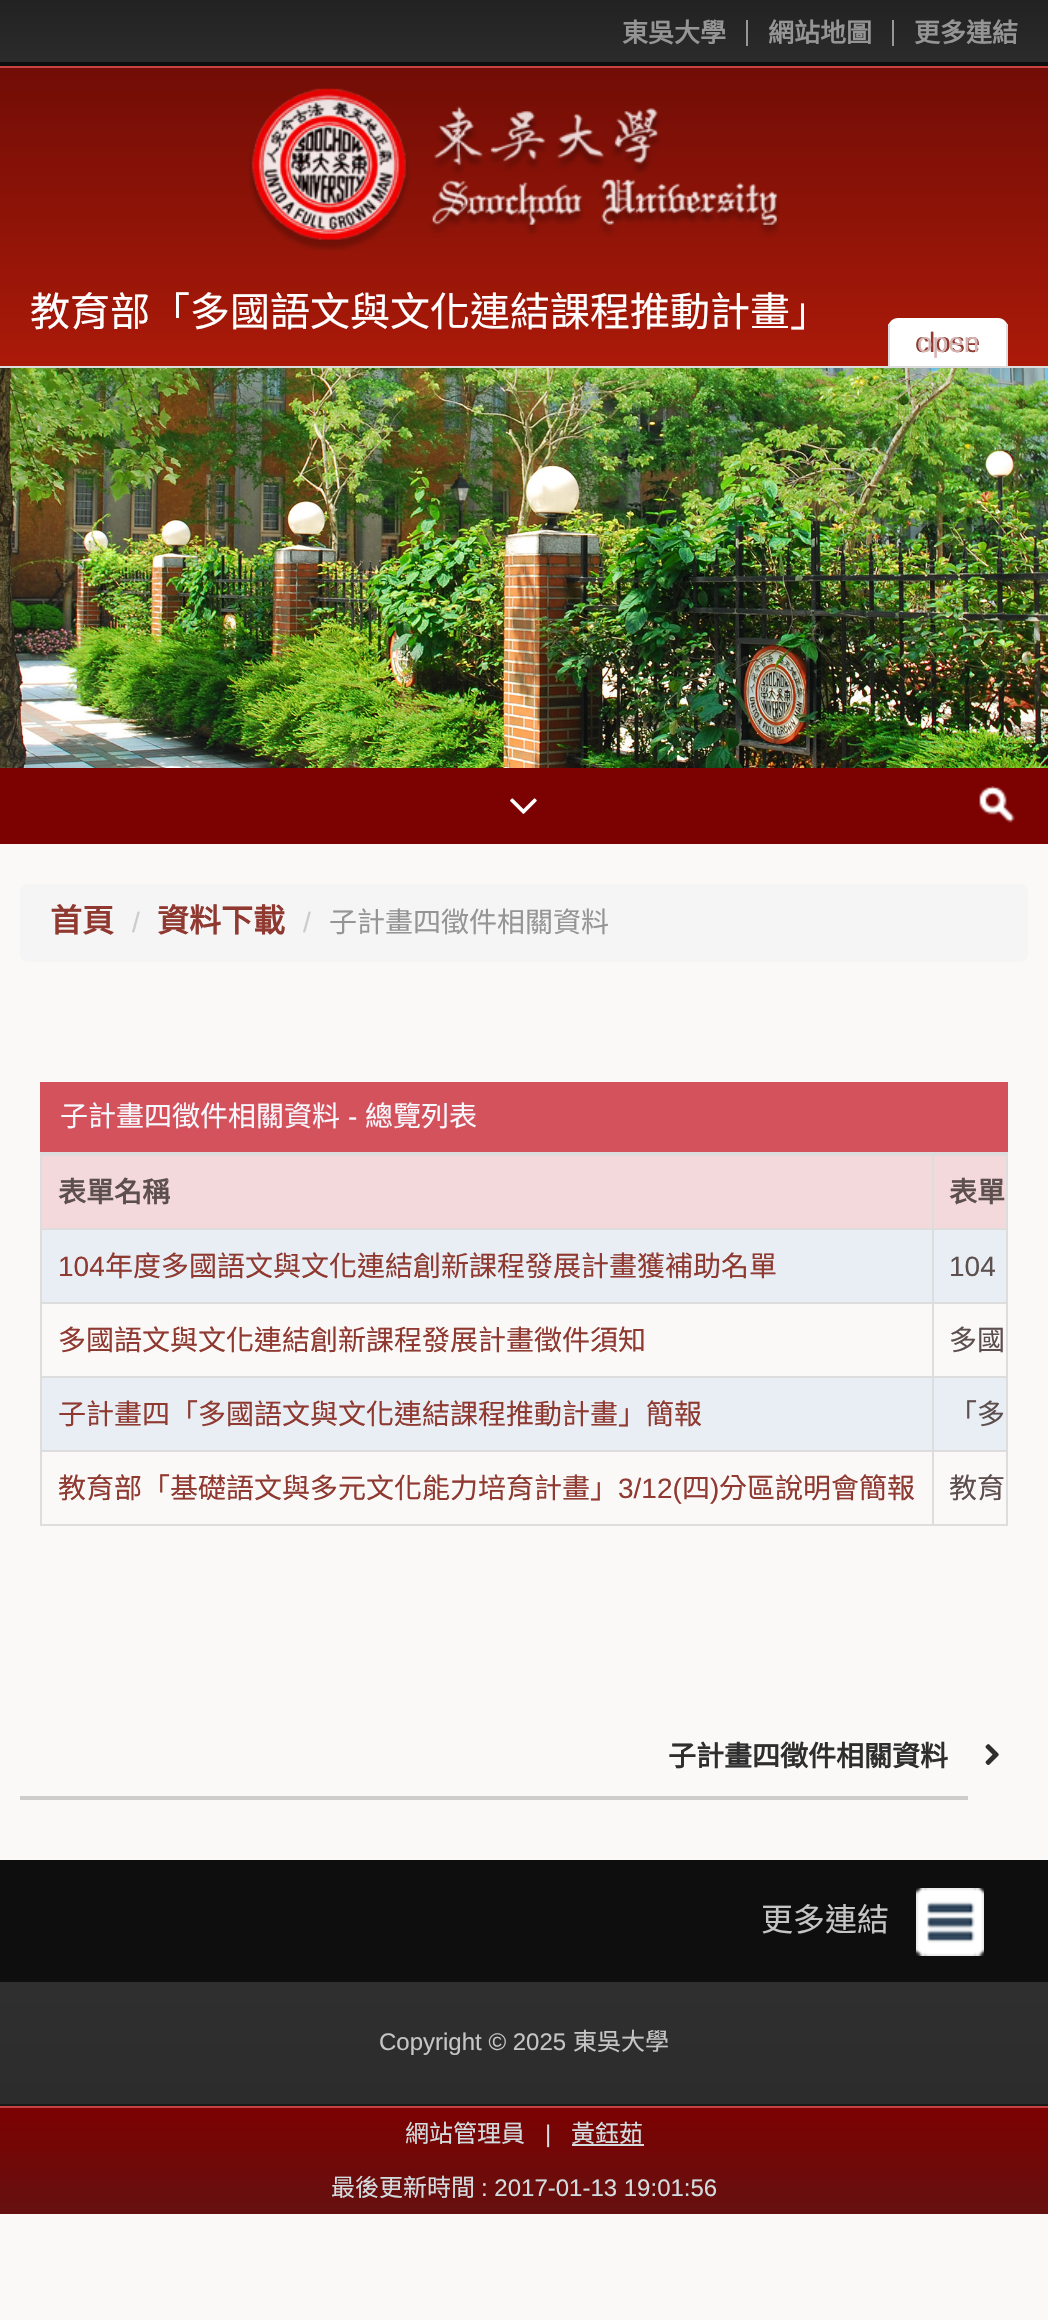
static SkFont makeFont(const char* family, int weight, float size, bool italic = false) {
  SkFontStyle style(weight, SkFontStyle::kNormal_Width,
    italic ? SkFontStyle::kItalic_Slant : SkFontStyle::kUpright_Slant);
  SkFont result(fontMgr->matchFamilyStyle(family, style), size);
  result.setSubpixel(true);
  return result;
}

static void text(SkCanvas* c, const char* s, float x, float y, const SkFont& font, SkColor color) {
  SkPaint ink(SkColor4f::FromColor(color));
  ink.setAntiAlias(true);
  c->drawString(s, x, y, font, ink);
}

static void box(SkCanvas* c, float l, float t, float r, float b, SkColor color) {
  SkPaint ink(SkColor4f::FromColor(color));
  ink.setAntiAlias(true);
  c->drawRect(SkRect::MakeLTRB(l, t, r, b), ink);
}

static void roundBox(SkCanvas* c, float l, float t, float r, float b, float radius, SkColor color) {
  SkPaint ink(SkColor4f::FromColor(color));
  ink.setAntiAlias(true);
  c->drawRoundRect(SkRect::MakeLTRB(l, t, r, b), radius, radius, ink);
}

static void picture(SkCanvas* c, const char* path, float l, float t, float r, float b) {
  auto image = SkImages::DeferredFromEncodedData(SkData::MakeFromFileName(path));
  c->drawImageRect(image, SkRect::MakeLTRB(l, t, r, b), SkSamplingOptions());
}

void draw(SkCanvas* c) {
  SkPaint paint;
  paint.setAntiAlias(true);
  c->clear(0xfffaf9f7);
  {
    const SkColor colors[] = {0xff222222, 0xff2b2b2b};
    const float stops[] = {0, 1};
    const SkPoint ends[] = {{524, 0}, {524, 62}};
    paint.setShader(SkGradientShader::MakeLinear(ends, colors, stops, 2, SkTileMode::kClamp));
    paint.setAlpha(255);
  }
  c->drawRect(SkRect::MakeLTRB(0, 0, 1048, 62), paint);
  box(c, 0, 62, 1048, 66, 0xff0e0e0e);
  SkFont face1 = makeFont("Noto Sans CJK TC", 700, 26);
  text(c, "東吳大學", 622, 42, face1, 0xff969595);
  box(c, 746, 20, 748, 46, 0xff969696);
  text(c, "網站地圖", 768, 42, face1, 0xff969595);
  box(c, 892, 20, 894, 46, 0xff969696);
  text(c, "更多連結", 914, 42, face1, 0xff969595);
  {
    const SkColor colors[] = {0xff710d06, 0xffac1a09};
    const float stops[] = {0, 1};
    const SkPoint ends[] = {{524, 68}, {524, 368}};
    paint.setShader(SkGradientShader::MakeLinear(ends, colors, stops, 2, SkTileMode::kClamp));
    paint.setAlpha(255);
  }
  c->drawRect(SkRect::MakeLTRB(0, 68, 1048, 366), paint);
  box(c, 0, 66, 1048, 68, 0xffc84341);
  picture(c, "img_01.png", 248, 88, 780, 251);
  SkFont face2 = makeFont("Noto Sans CJK TC", 400, 40);
  text(c, "教育部「多國語文與文化連結課程推動計畫」", 30, 326, face2, 0xffffffff);
  box(c, 0, 366, 1048, 368, 0xffdddddd);
  paint.setShader(nullptr);
  paint.setColor(0xffffffff);
  c->drawPath(SkPathBuilder().moveTo(898, 318).lineTo(998, 318).cubicTo(1003.5f, 318, 1008, 322.5f, 1008, 328).lineTo(1008, 368).lineTo(888, 368).lineTo(888, 328).cubicTo(888, 322.5f, 892.5f, 318, 898, 318).close().detach(), paint);
  box(c, 1006, 324, 1008, 368, 0xffdddddd);
  box(c, 888, 366, 1008, 368, 0xffdddddd);
  box(c, 888, 324, 890, 368, 0xffdddddd);
  SkFont face3 = makeFont("Liberation Sans", 400, 28);
  text(c, "close", 915, 352, face3, 0xff8f3931);
  text(c, "open", 917, 352, face3, 0xffd6b6b3);
  picture(c, "img_02.png", 0, 368, 1048, 768);
  box(c, 0, 768, 1048, 844, 0xff7c0101);
  picture(c, "img_03.png", 510, 798, 537, 814);
  picture(c, "img_04.png", 979, 786, 1015, 823);
  roundBox(c, 20, 884, 1028, 962, 8, 0xfff5f5f5);
  SkFont face4 = makeFont("Noto Sans CJK TC", 700, 32);
  text(c, "首頁", 50, 932, face4, 0xff8f3931);
  text(c, "/", 132, 932, face3, 0xffcccccc);
  text(c, "資料下載", 157, 932, face4, 0xff8f3931);
  text(c, "/", 303, 932, face3, 0xffcccccc);
  SkFont face5 = makeFont("Noto Sans CJK TC", 400, 28);
  text(c, "子計畫四徵件相關資料", 329, 932, face5, 0xff969595);
  box(c, 40, 1082, 1008, 1152, 0xffd4525c);
  text(c, "子計畫四徵件相關資料", 60, 1126, face5, 0xfff8f8ff);
  text(c, "-", 348, 1126, face3, 0xfff8f8ff);
  text(c, "總覽列表", 365, 1126, face5, 0xfff8f8ff);
  paint.setStyle(SkPaint::kStroke_Style);
  paint.setStrokeWidth(2);
  paint.setColor(0xffdddddd);
  c->drawRect(SkRect::MakeLTRB(41, 1153, 1007, 1525), paint);
  box(c, 42, 1156, 932, 1228, 0xfff3d9dc);
  box(c, 932, 1154, 1006, 1156, 0xffdddddd);
  box(c, 932, 1228, 1006, 1230, 0xffdddddd);
  box(c, 42, 1230, 1006, 1302, 0xffe8eef4);
  box(c, 932, 1302, 1006, 1304, 0xffdddddd);
  box(c, 932, 1376, 1006, 1378, 0xffdddddd);
  box(c, 42, 1378, 1006, 1450, 0xffe8eef4);
  box(c, 932, 1450, 1006, 1452, 0xffdddddd);
  box(c, 932, 1450, 934, 1524, 0xffdddddd);
  box(c, 42, 1450, 934, 1452, 0xffdddddd);
  box(c, 932, 1376, 934, 1452, 0xffdddddd);
  box(c, 42, 1376, 934, 1378, 0xffdddddd);
  box(c, 932, 1302, 934, 1378, 0xffdddddd);
  box(c, 42, 1302, 934, 1304, 0xffdddddd);
  box(c, 932, 1228, 934, 1304, 0xffdddddd);
  box(c, 42, 1228, 934, 1230, 0xffdddddd);
  box(c, 932, 1154, 934, 1230, 0xffdddddd);
  box(c, 42, 1154, 934, 1156, 0xffdddddd);
  SkFont face6 = makeFont("Noto Sans CJK TC", 700, 28);
  text(c, "表單名稱", 58, 1202, face6, 0xff5c4f4e);
  box(c, 934, 1156, 1006, 1228, 0xfff3d9dc);
  text(c, "表單", 949, 1202, face6, 0xff5c4f4e);
  text(c, "104", 58, 1276, face3, 0xff8f3931);
  text(c, "年度多國語文與文化連結創新課程發展計畫獲補助名單", 105, 1276, face5, 0xff8f3931);
  text(c, "104", 949, 1276, face3, 0xff5c4f4e);
  text(c, "多國語文與文化連結創新課程發展計畫徵件須知", 58, 1350, face5, 0xff8f3931);
  text(c, "多國", 949, 1350, face5, 0xff5c4f4e);
  text(c, "子計畫四「多國語文與文化連結課程推動計畫」簡報", 58, 1424, face5, 0xff8f3931);
  text(c, "「多", 949, 1424, face5, 0xff5c4f4e);
  text(c, "教育部「基礎語文與多元文化能力培育計畫」", 58, 1498, face5, 0xff8f3931);
  text(c, "3/12(", 618, 1498, face3, 0xff8f3931);
  text(c, "四", 682, 1498, face5, 0xff8f3931);
  text(c, ")", 710, 1498, face3, 0xff8f3931);
  text(c, "分區說明會簡報", 719, 1498, face5, 0xff8f3931);
  text(c, "教育", 949, 1498, face5, 0xff5c4f4e);
  box(c, 20, 1796, 968, 1800, 0xffcecdcb);
  text(c, "子計畫四徵件相關資料", 668, 1766, face6, 0xff2e2e2e);
  picture(c, "img_05.png", 985, 1744, 999, 1765);
  paint.setStyle(SkPaint::kFill_Style);
  {
    const SkColor colors[] = {0xff323232, 0xff2c2c2c};
    const float stops[] = {0, 1};
    const SkPoint ends[] = {{524, 1860}, {524, 2104}};
    paint.setShader(SkGradientShader::MakeLinear(ends, colors, stops, 2, SkTileMode::kClamp));
    paint.setAlpha(255);
  }
  c->drawRect(SkRect::MakeLTRB(0, 1982, 1048, 2104), paint);
  box(c, 0, 2104, 1048, 2106, 0xff191919);
  box(c, 0, 1860, 1048, 1982, 0xff0e0e0e);
  SkFont face7 = makeFont("Noto Sans CJK TC", 400, 32);
  text(c, "更多連結", 761, 1931, face7, 0xffc5c5c5);
  picture(c, "img_06.png", 916, 1888, 984, 1956);
  SkFont face8 = makeFont("Liberation Sans", 400, 24);
  text(c, "Copyright © 2025", 379, 2050, face8, 0xffc5c5c5);
  SkFont face9 = makeFont("Noto Sans CJK TC", 400, 24);
  text(c, "東吳大學", 573, 2050, face9, 0xffc5c5c5);
  {
    const SkColor colors[] = {0xff7c0101, 0xff651110};
    const float stops[] = {0, 1};
    const SkPoint ends[] = {{524, 2108}, {524, 2214}};
    paint.setShader(SkGradientShader::MakeLinear(ends, colors, stops, 2, SkTileMode::kClamp));
    paint.setAlpha(255);
  }
  c->drawRect(SkRect::MakeLTRB(0, 2108, 1048, 2214), paint);
  box(c, 0, 2106, 1048, 2108, 0xffc84341);
  text(c, "網站管理員", 405, 2142, face9, 0xffd3dde0);
  text(c, "|", 545, 2142, face8, 0xffd3dde0);
  text(c, "黃鈺茹", 571, 2142, face9, 0xffd3dde0);
  box(c, 572, 2144, 644, 2146, 0xffd3dde0);
  text(c, "最後更新時間", 331, 2196, face9, 0xffd3dde0);
  text(c, ": 2017-01-13 19:01:56", 481, 2196, face8, 0xffd3dde0);
}
